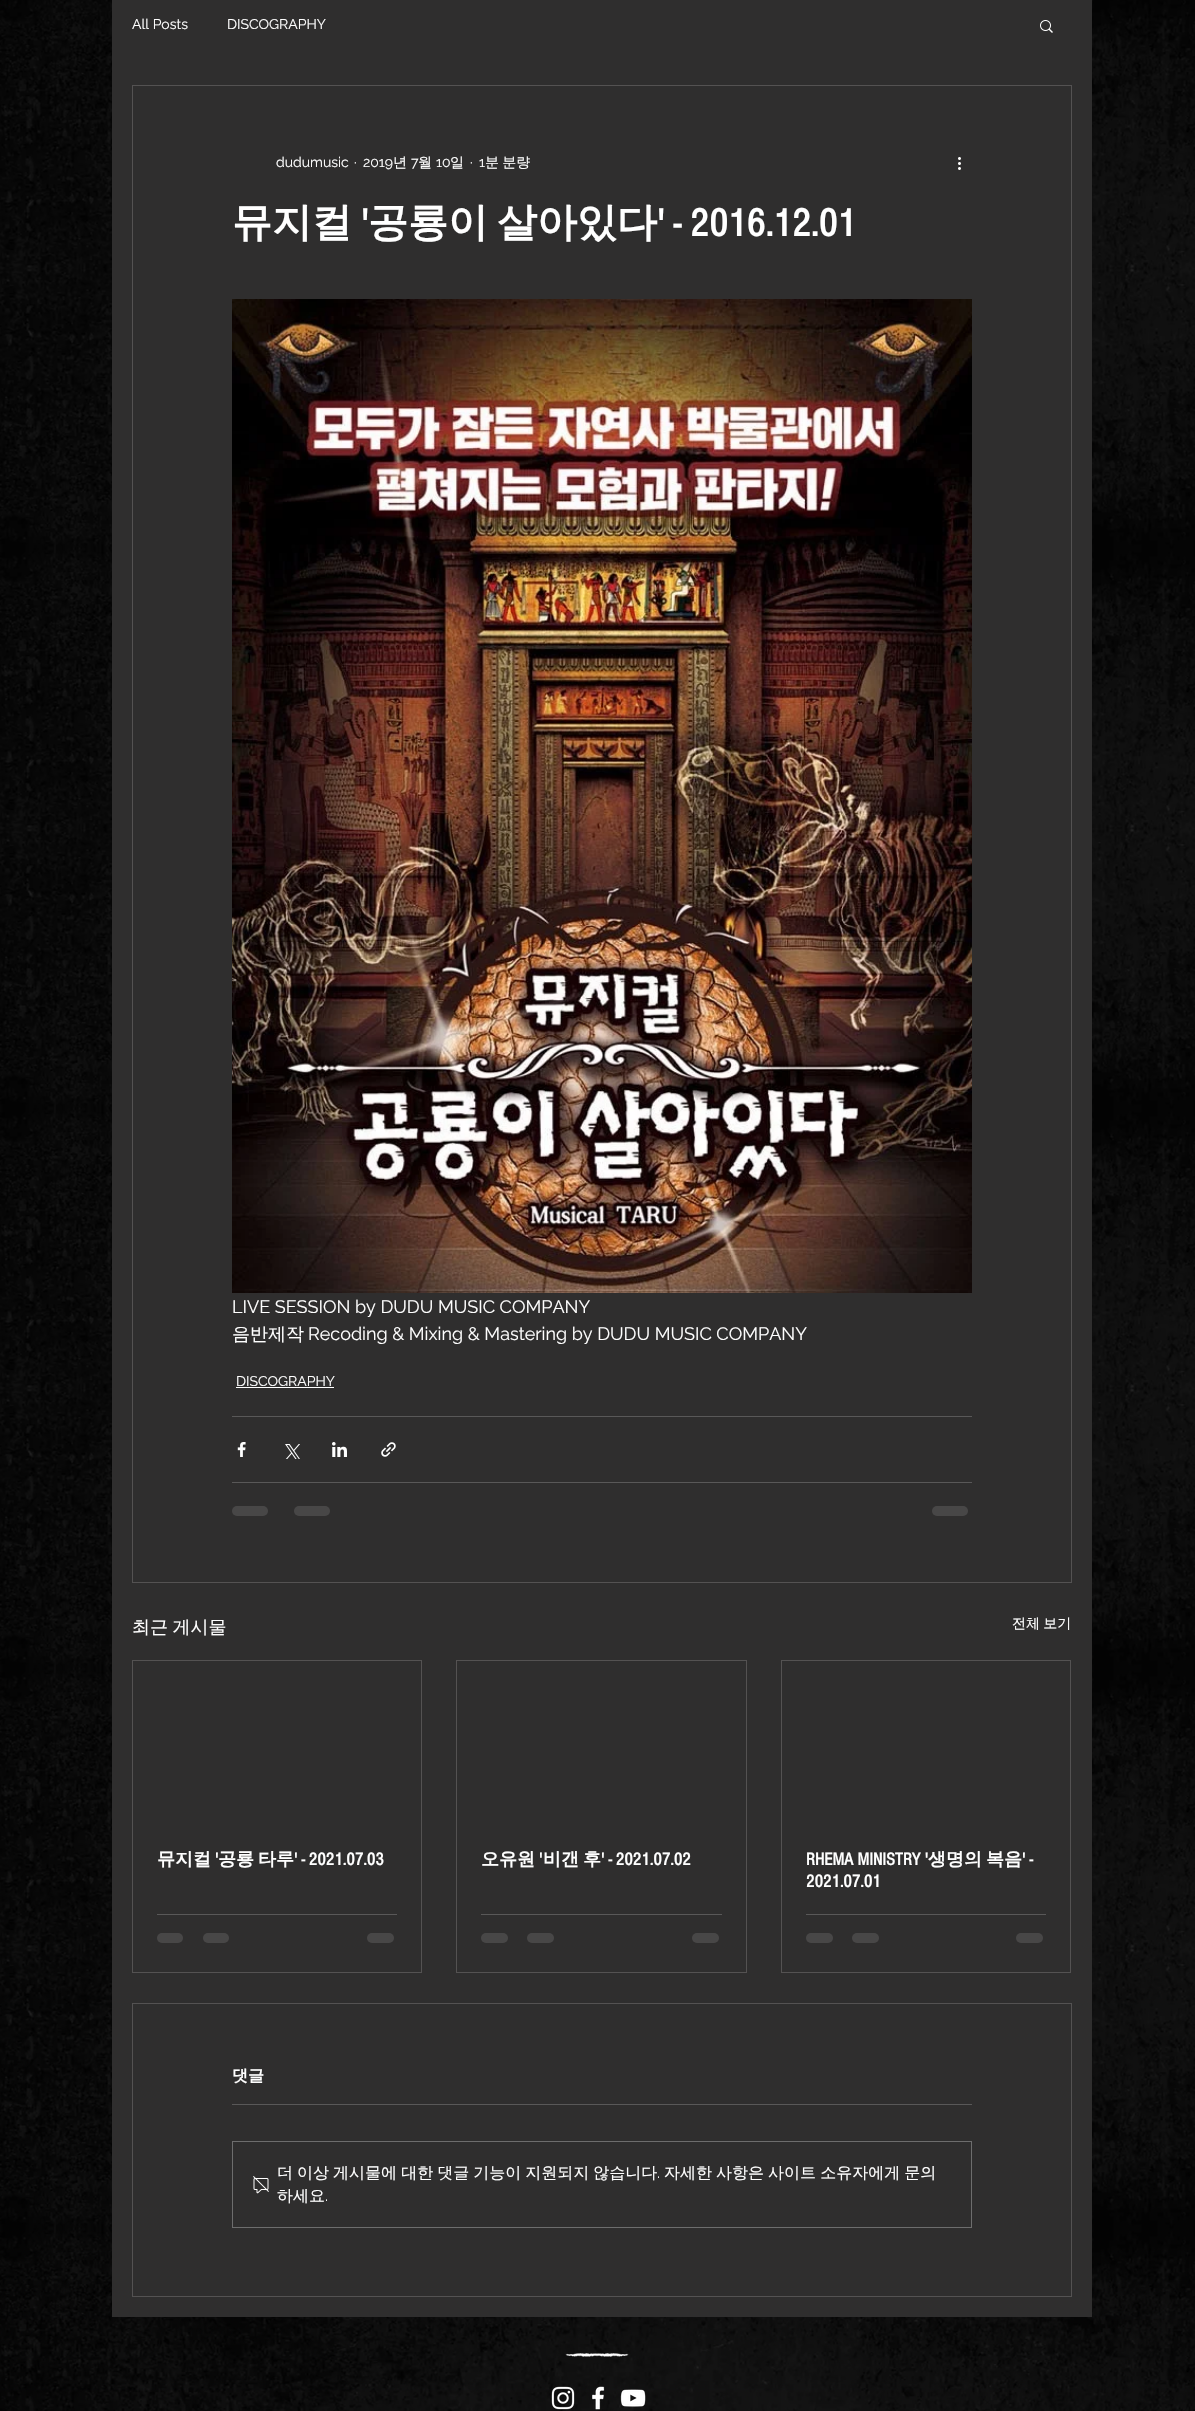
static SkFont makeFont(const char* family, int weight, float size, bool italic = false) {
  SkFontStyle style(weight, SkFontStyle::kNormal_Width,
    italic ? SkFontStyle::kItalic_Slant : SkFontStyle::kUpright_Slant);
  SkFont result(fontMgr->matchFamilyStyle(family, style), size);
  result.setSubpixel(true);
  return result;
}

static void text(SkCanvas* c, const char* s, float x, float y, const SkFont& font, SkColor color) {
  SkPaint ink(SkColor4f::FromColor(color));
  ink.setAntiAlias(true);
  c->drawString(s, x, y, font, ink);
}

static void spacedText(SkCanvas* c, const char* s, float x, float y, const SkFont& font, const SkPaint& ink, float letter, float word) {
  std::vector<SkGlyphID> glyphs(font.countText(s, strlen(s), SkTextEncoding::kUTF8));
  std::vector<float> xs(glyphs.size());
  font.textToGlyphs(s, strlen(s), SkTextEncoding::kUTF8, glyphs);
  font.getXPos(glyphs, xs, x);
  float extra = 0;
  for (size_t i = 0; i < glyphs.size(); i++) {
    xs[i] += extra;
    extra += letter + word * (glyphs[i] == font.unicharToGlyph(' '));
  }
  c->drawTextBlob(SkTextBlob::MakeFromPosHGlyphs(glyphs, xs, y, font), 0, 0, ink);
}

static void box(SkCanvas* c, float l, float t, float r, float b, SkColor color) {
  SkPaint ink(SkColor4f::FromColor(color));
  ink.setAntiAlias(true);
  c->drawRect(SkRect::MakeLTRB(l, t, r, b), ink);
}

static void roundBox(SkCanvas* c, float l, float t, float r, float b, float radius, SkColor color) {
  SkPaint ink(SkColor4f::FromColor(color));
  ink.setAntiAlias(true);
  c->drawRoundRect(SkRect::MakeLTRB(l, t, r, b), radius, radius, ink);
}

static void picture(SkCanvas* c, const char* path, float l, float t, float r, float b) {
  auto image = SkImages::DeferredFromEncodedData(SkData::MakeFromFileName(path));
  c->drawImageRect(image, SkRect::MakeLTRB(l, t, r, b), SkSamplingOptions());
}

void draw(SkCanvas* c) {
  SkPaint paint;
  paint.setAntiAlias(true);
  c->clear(0xffffffff);
  picture(c, "img_01.png", 0, 0, 1195, 2411);
  box(c, 112, 0, 1092, 2317, 0xff2f2e2e);
  SkFont face1 = makeFont("Raleway", 400, 14);
  text(c, "All Posts", 132, 29, face1, 0xffffffff);
  text(c, "DISCOGRAPHY", 227, 29, face1, 0xffffffff);
  picture(c, "img_02.png", 1040, 20, 1053, 33);
  paint.setStyle(SkPaint::kStroke_Style);
  paint.setStrokeWidth(1);
  paint.setColor(0xff545252);
  c->drawRect(SkRect::MakeLTRB(132.5f, 85.5f, 1071.5f, 1582.5f), paint);
  text(c, "dudumusic", 276, 167, face1, 0xffffffff);
  text(c, "·", 354, 167, face1, 0xffffffff);
  text(c, "2019", 363, 167, face1, 0xffffffff);
  SkFont face2 = makeFont("WenQuanYi Zen Hei", 500, 14);
  text(c, "년", 393, 167, face2, 0xffffffff);
  text(c, "7", 411, 167, face1, 0xffffffff);
  text(c, "월", 418, 167, face2, 0xffffffff);
  text(c, "10", 436, 167, face1, 0xffffffff);
  text(c, "일", 450, 167, face2, 0xffffffff);
  text(c, "·", 470, 167, face1, 0xffffffff);
  text(c, "1", 479, 167, face1, 0xffffffff);
  paint.setStyle(SkPaint::kFill_Style);
  paint.setColor(0xffffffff);
  spacedText(c, "분 분량", 485, 167, face2, paint, 0, -1);
  picture(c, "img_03.png", 958, 157, 961, 170);
  SkFont face3 = makeFont("WenQuanYi Zen Hei", 700, 40);
  text(c, "뮤지컬", 232, 236, face3, 0xffffffff);
  SkFont face4 = makeFont("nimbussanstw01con", 700, 40);
  text(c, "'", 361, 236, face4, 0xffffffff);
  text(c, "공룡이", 368, 236, face3, 0xffffffff);
  text(c, "살아있다", 497, 236, face3, 0xffffffff);
  text(c, "' - 2016.12.01", 657, 236, face4, 0xffffffff);
  picture(c, "img_04.png", 232, 299, 972, 1293);
  SkFont face5 = makeFont("Raleway", 400, 18);
  text(c, "LIVE SESSION by DUDU MUSIC COMPANY", 232, 1313, face5, 0xffffffff);
  SkFont face6 = makeFont("WenQuanYi Zen Hei", 500, 18);
  text(c, "음반제작", 232, 1340, face6, 0xffffffff);
  text(c, "Recoding & Mixing & Mastering by DUDU MUSIC COMPANY", 308, 1340, face5, 0xffffffff);
  text(c, "DISCOGRAPHY", 236, 1386, face1, 0xffffffff);
  box(c, 236, 1387, 334, 1388, 0xffffffff);
  box(c, 232, 1416, 972, 1417, 0xff595858);
  picture(c, "img_05.png", 237, 1442, 246, 1457);
  picture(c, "img_06.png", 285, 1444, 300, 1459);
  picture(c, "img_07.png", 332, 1442, 347, 1457);
  picture(c, "img_08.png", 381, 1442, 396, 1457);
  box(c, 232, 1482, 972, 1483, 0xff595858);
  roundBox(c, 232, 1506, 268, 1516, 5, 0xff484747);
  roundBox(c, 294, 1506, 330, 1516, 5, 0xff484747);
  roundBox(c, 932, 1506, 968, 1516, 5, 0xff484747);
  spacedText(c, "최근 게시물", 132, 1633, face6, paint, 0, -1);
  spacedText(c, "전체 보기", 1012, 1628, face2, paint, 0, -1);
  paint.setStyle(SkPaint::kStroke_Style);
  paint.setColor(0xff545252);
  c->drawRect(SkRect::MakeLTRB(132.5f, 1660.5f, 421.5f, 1972.5f), paint);
  SkFont face7 = makeFont("WenQuanYi Zen Hei", 700, 18);
  text(c, "뮤지컬", 157, 1865, face7, 0xffffffff);
  SkFont face8 = makeFont("nimbussanstw01con", 700, 18);
  text(c, "'", 215, 1865, face8, 0xffffffff);
  text(c, "공룡", 218, 1865, face7, 0xffffffff);
  text(c, "타루", 258, 1865, face7, 0xffffffff);
  text(c, "' - 2021.07.03", 294, 1865, face8, 0xffffffff);
  box(c, 157, 1914, 397, 1915, 0xff595858);
  roundBox(c, 157, 1933, 183, 1943, 5, 0xff484747);
  roundBox(c, 203, 1933, 229, 1943, 5, 0xff484747);
  roundBox(c, 367, 1933, 394, 1943, 5, 0xff484747);
  c->drawRect(SkRect::MakeLTRB(456.5f, 1660.5f, 746.5f, 1972.5f), paint);
  text(c, "오유원", 481, 1865, face7, 0xffffffff);
  text(c, "'", 539, 1865, face8, 0xffffffff);
  text(c, "비갠", 543, 1865, face7, 0xffffffff);
  text(c, "후", 583, 1865, face7, 0xffffffff);
  text(c, "' - 2021.07.02", 601, 1865, face8, 0xffffffff);
  box(c, 481, 1914, 722, 1915, 0xff595858);
  roundBox(c, 481, 1933, 508, 1943, 5, 0xff484747);
  roundBox(c, 527, 1933, 554, 1943, 5, 0xff484747);
  roundBox(c, 692, 1933, 719, 1943, 5, 0xff484747);
  c->drawRect(SkRect::MakeLTRB(781.5f, 1660.5f, 1070.5f, 1972.5f), paint);
  text(c, "RHEMA MINISTRY '", 806, 1865, face8, 0xffffffff);
  text(c, "생명의", 928, 1865, face7, 0xffffffff);
  text(c, "복음", 986, 1865, face7, 0xffffffff);
  text(c, "' -", 1022, 1865, face8, 0xffffffff);
  text(c, "2021.07.01", 806, 1887, face8, 0xffffffff);
  box(c, 806, 1914, 1046, 1915, 0xff595858);
  roundBox(c, 806, 1933, 833, 1943, 5, 0xff484747);
  roundBox(c, 852, 1933, 879, 1943, 5, 0xff484747);
  roundBox(c, 1016, 1933, 1043, 1943, 5, 0xff484747);
  c->drawRect(SkRect::MakeLTRB(132.5f, 2003.5f, 1071.5f, 2296.5f), paint);
  SkFont face9 = makeFont("WenQuanYi Zen Hei", 700, 16);
  text(c, "댓글", 232, 2081, face9, 0xffffffff);
  box(c, 232, 2104, 972, 2105, 0xff595858);
  paint.setColor(0xff6d6d6d);
  c->drawRect(SkRect::MakeLTRB(232.5f, 2141.5f, 971.5f, 2227.5f), paint);
  picture(c, "img_09.png", 253, 2176, 269, 2194);
  SkFont face10 = makeFont("WenQuanYi Zen Hei", 500, 16);
  paint.setStyle(SkPaint::kFill_Style);
  paint.setColor(0xffffffff);
  spacedText(c, "더 이상 게시물에 대한 댓글 기능이 지원되지 않습니다", 277, 2178, face10, paint, 0, -0.75f);
  SkFont face11 = makeFont("Raleway", 400, 16);
  text(c, ".", 657, 2178, face11, 0xffffffff);
  spacedText(c, "자세한 사항은 사이트 소유자에게 문의", 664, 2178, face10, paint, 0, -0.75f);
  text(c, "하세요", 277, 2201, face10, 0xffffffff);
  text(c, ".", 325, 2201, face11, 0xffffffff);
  picture(c, "img_10.png", 565, 2353, 629, 2357);
  picture(c, "img_11.png", 551, 2386, 575, 2410);
  picture(c, "img_12.png", 592, 2386, 605, 2410);
  picture(c, "img_13.png", 620, 2389, 646, 2407);
}
